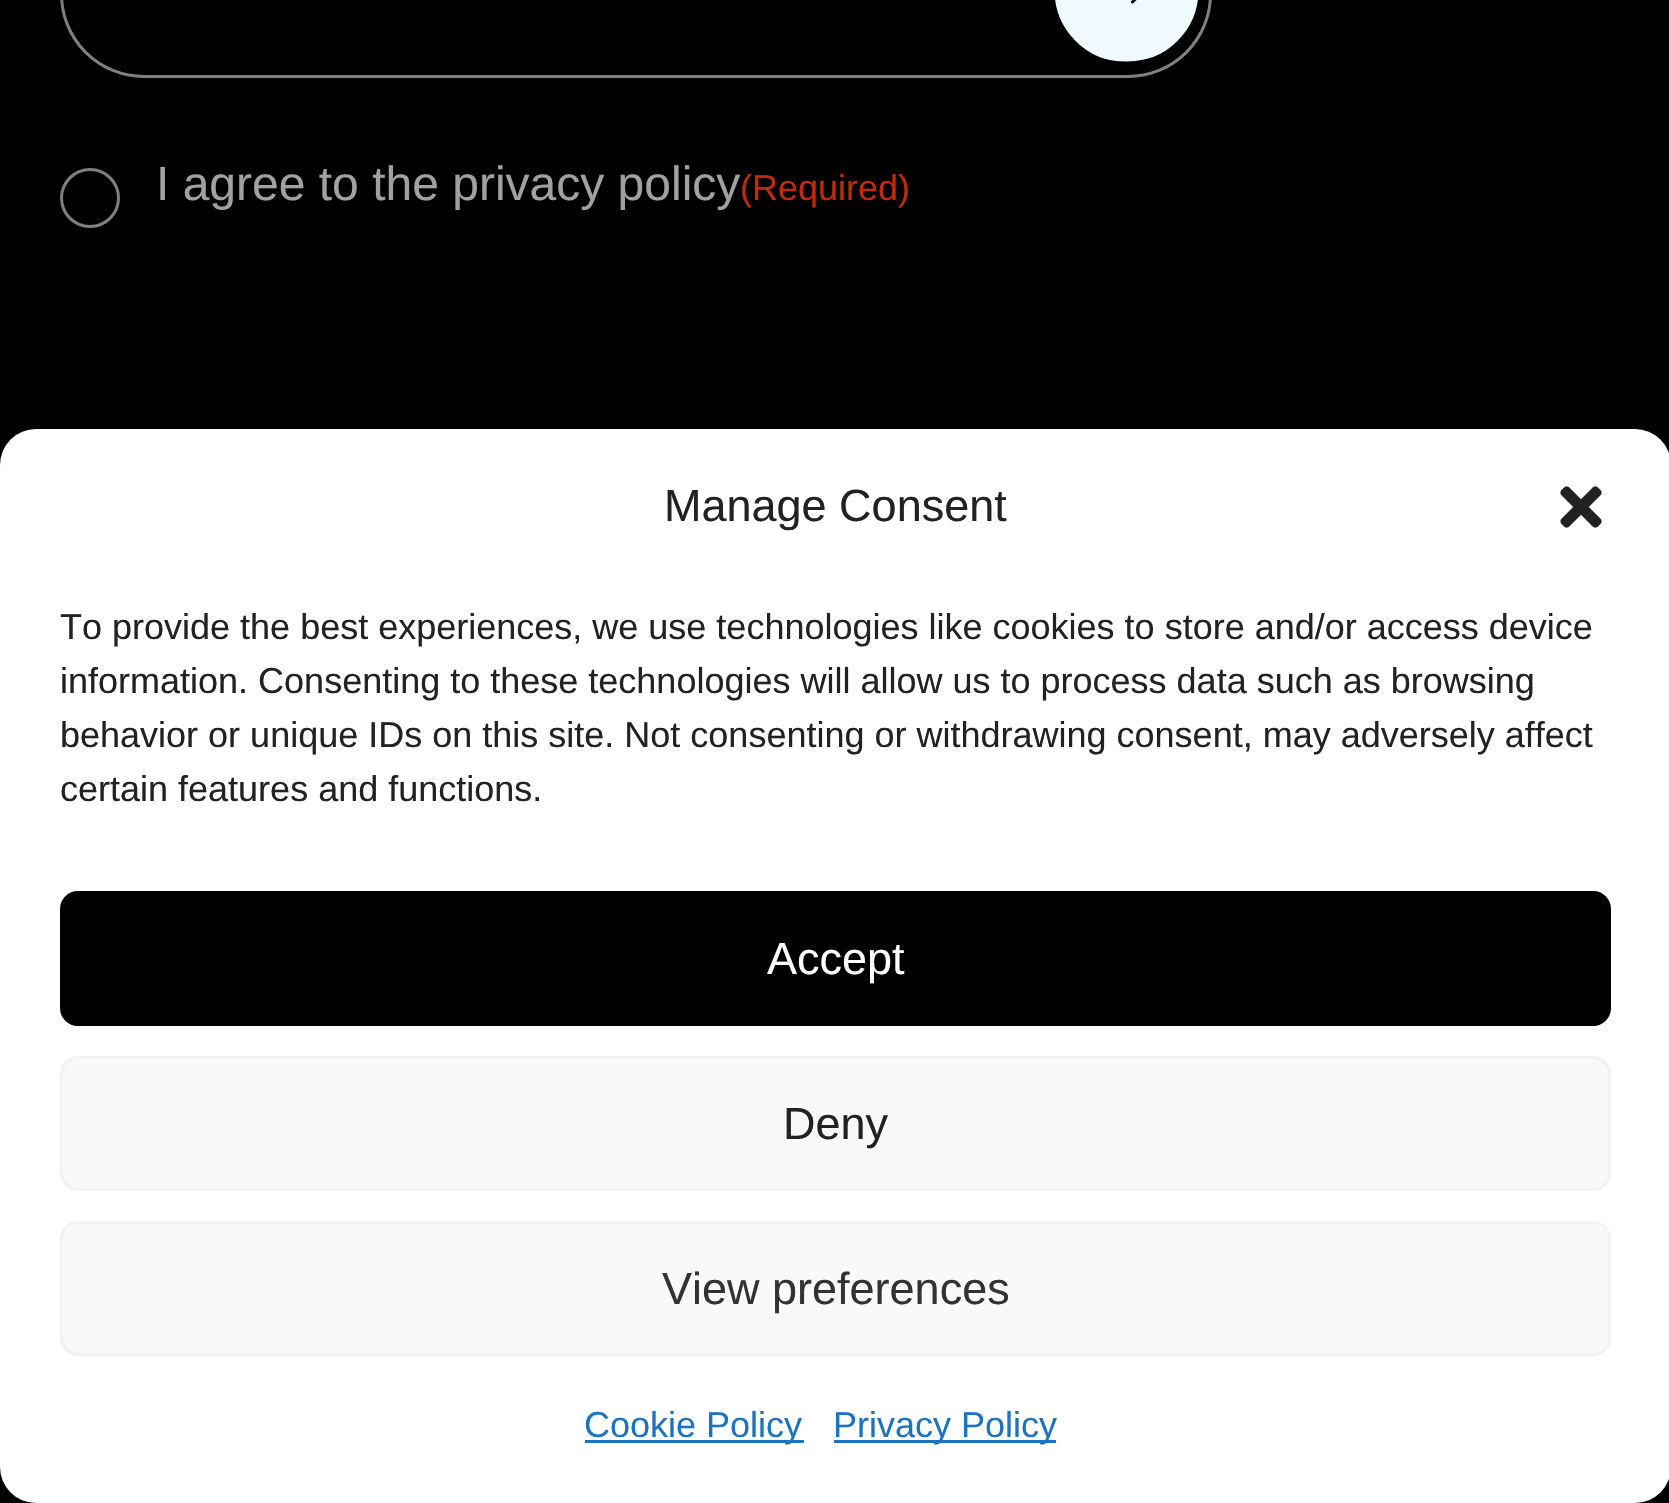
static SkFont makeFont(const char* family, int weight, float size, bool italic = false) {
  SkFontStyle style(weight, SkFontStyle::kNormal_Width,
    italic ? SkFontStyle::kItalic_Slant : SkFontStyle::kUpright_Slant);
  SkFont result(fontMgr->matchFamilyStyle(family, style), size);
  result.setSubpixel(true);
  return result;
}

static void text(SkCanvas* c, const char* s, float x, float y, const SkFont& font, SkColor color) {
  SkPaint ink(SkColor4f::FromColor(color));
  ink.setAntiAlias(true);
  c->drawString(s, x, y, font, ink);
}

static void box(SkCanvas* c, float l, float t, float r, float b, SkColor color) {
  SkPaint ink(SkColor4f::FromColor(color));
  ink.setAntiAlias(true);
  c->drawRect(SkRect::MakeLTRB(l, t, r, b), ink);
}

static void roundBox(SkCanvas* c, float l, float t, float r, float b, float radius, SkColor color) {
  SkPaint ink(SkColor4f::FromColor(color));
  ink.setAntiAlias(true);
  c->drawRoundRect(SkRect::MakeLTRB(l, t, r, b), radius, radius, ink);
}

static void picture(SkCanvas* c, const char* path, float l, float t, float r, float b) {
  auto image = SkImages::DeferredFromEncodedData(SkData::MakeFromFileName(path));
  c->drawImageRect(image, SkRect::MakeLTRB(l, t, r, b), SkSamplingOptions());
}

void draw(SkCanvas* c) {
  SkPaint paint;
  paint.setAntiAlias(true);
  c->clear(0xff000000);
  paint.setStyle(SkPaint::kStroke_Style);
  paint.setStrokeWidth(3);
  paint.setColor(0xff808080);
  c->drawRoundRect(SkRect::MakeLTRB(61.5f, -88.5f, 1210.5f, 76.5f), 85.5f, 85.5f, paint);
  paint.setStyle(SkPaint::kFill_Style);
  paint.setColor(0xfff0f9ff);
  c->drawPath(SkPathBuilder().moveTo(1126, -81).cubicTo(1165, -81, 1197, -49, 1197, -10).cubicTo(1197, 29, 1165, 60, 1126, 60).cubicTo(1088, 60, 1056, 29, 1056, -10).cubicTo(1056, -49, 1088, -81, 1126, -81).close().detach(), paint);
  c->save();
  c->clipPath(SkPathBuilder().moveTo(1125.5f, -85.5f).cubicTo(1166, -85.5f, 1199, -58, 1199, -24).lineTo(1199, 0).cubicTo(1199, 34, 1166, 61.5f, 1125.5f, 61.5f).cubicTo(1084.5f, 61.5f, 1052, 34, 1052, 0).lineTo(1052, -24).cubicTo(1052, -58, 1084.5f, -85.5f, 1125.5f, -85.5f).close().detach(), true);
  paint.setStyle(SkPaint::kStroke_Style);
  c->drawPath(SkPathBuilder().moveTo(1126.5f, -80.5f).cubicTo(1165.5f, -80.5f, 1197, -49, 1197, -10).cubicTo(1197, 29, 1165.5f, 60.5f, 1126.5f, 60.5f).cubicTo(1087.5f, 60.5f, 1056, 29, 1056, -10).cubicTo(1056, -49, 1087.5f, -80.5f, 1126.5f, -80.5f).close().detach(), paint);
  c->restore();
  paint.setStrokeCap(SkPaint::kRound_Cap);
  paint.setStrokeJoin(SkPaint::kRound_Join);
  paint.setColor(0xff000000);
  c->drawPath(SkPathBuilder().moveTo(1132.5f, -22).lineTo(1144.5f, -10).moveTo(1144.5f, -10).lineTo(1132.5f, 2).moveTo(1144.5f, -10).lineTo(1108.5f, -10).detach(), paint);
  paint.setStrokeCap(SkPaint::kButt_Cap);
  paint.setStrokeJoin(SkPaint::kMiter_Join);
  paint.setColor(0xff808080);
  c->drawCircle(90, 198, 28.5f, paint);
  SkFont face1 = makeFont("Liberation Sans", 400, 48);
  text(c, "I agree to the privacy policy", 156, 200, face1, 0xffa1a1a1);
  SkFont face2 = makeFont("Liberation Sans", 400, 36);
  text(c, "(Required)", 740, 200, face2, 0xffc02b0a);
  roundBox(c, 0, 429, 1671, 1503, 36, 0xffffffff);
  SkFont face3 = makeFont("Liberation Sans", 400, 45);
  text(c, "Manage Consent", 664, 521, face3, 0xff222222);
  picture(c, "img_01.png", 1560, 486, 1602, 528);
  text(c, "To provide the best experiences, we use technologies like cookies to store and/or access device", 60, 639, face2, 0xff222222);
  text(c, "information. Consenting to these technologies will allow us to process data such as browsing", 60, 693, face2, 0xff222222);
  text(c, "behavior or unique IDs on this site. Not consenting or withdrawing consent, may adversely affect", 60, 747, face2, 0xff222222);
  text(c, "certain features and functions.", 60, 801, face2, 0xff222222);
  paint.setStyle(SkPaint::kFill_Style);
  paint.setColor(0xff000000);
  c->drawRoundRect(SkRect::MakeLTRB(61.5f, 892.5f, 1609.5f, 1024.5f), 16.5f, 16.5f, paint);
  paint.setStyle(SkPaint::kStroke_Style);
  c->drawRoundRect(SkRect::MakeLTRB(61.5f, 892.5f, 1609.5f, 1024.5f), 16.5f, 16.5f, paint);
  text(c, "Accept", 767, 974, face3, 0xffffffff);
  paint.setStyle(SkPaint::kFill_Style);
  paint.setColor(0xfff9f9f9);
  c->drawRoundRect(SkRect::MakeLTRB(61.5f, 1057.5f, 1609.5f, 1189.5f), 16.5f, 16.5f, paint);
  paint.setStyle(SkPaint::kStroke_Style);
  paint.setColor(0xfff2f2f2);
  c->drawRoundRect(SkRect::MakeLTRB(61.5f, 1057.5f, 1609.5f, 1189.5f), 16.5f, 16.5f, paint);
  text(c, "Deny", 783, 1139, face3, 0xff222222);
  paint.setStyle(SkPaint::kFill_Style);
  paint.setColor(0xfff9f9f9);
  c->drawRoundRect(SkRect::MakeLTRB(61.5f, 1222.5f, 1609.5f, 1354.5f), 16.5f, 16.5f, paint);
  paint.setStyle(SkPaint::kStroke_Style);
  paint.setColor(0xfff2f2f2);
  c->drawRoundRect(SkRect::MakeLTRB(61.5f, 1222.5f, 1609.5f, 1354.5f), 16.5f, 16.5f, paint);
  text(c, "View preferences", 662, 1304, face3, 0xff333333);
  box(c, 585, 1440, 804, 1443, 0xff1e73be);
  text(c, "Cookie Policy", 584, 1437, face2, 0xff1e73be);
  box(c, 834, 1440, 1056, 1443, 0xff1e73be);
  text(c, "Privacy Policy", 833, 1437, face2, 0xff1e73be);
}
